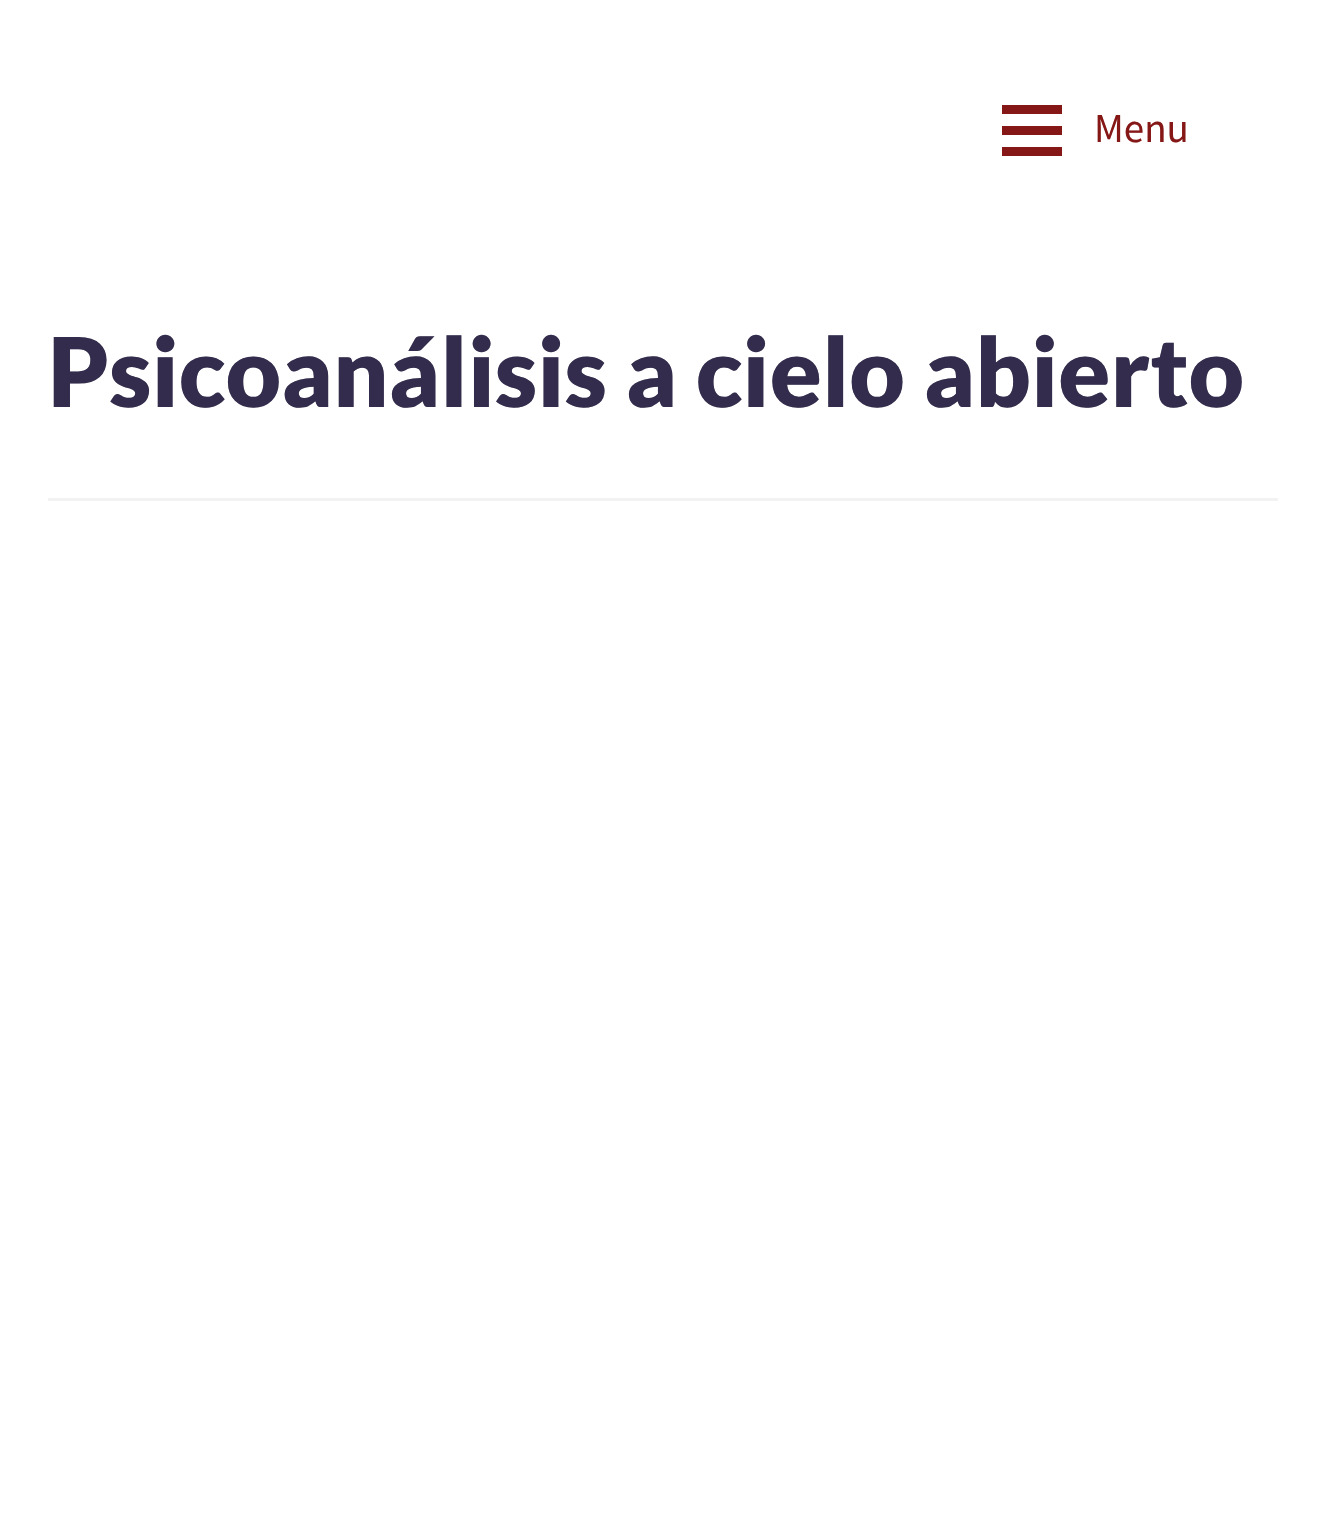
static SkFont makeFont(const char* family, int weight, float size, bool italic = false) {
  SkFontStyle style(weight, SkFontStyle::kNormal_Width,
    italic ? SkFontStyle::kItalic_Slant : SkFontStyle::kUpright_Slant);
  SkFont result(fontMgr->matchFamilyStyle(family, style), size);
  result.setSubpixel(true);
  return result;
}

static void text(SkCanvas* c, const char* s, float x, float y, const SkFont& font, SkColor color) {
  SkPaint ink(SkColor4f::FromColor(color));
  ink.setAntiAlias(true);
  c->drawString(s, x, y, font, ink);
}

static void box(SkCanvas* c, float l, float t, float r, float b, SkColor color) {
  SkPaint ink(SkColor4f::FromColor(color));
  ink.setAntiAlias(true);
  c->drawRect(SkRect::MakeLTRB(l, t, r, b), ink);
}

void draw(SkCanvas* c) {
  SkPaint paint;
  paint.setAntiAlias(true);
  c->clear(0xffffffff);
  box(c, 1002, 105, 1062, 114, 0xff861717);
  box(c, 1002, 126, 1062, 135, 0xff861717);
  SkFont face1 = makeFont("Source Sans Pro", 400, 41);
  text(c, "Menu", 1094, 142, face1, 0xff861717);
  box(c, 1002, 147, 1062, 156, 0xff861717);
  SkFont face2 = makeFont("Lato", 900, 96);
  text(c, "Psicoanálisis a cielo abierto", 48, 407, face2, 0xff332c4c);
  box(c, 48, 498, 1278, 501, 0xfff2f2f2);
}
